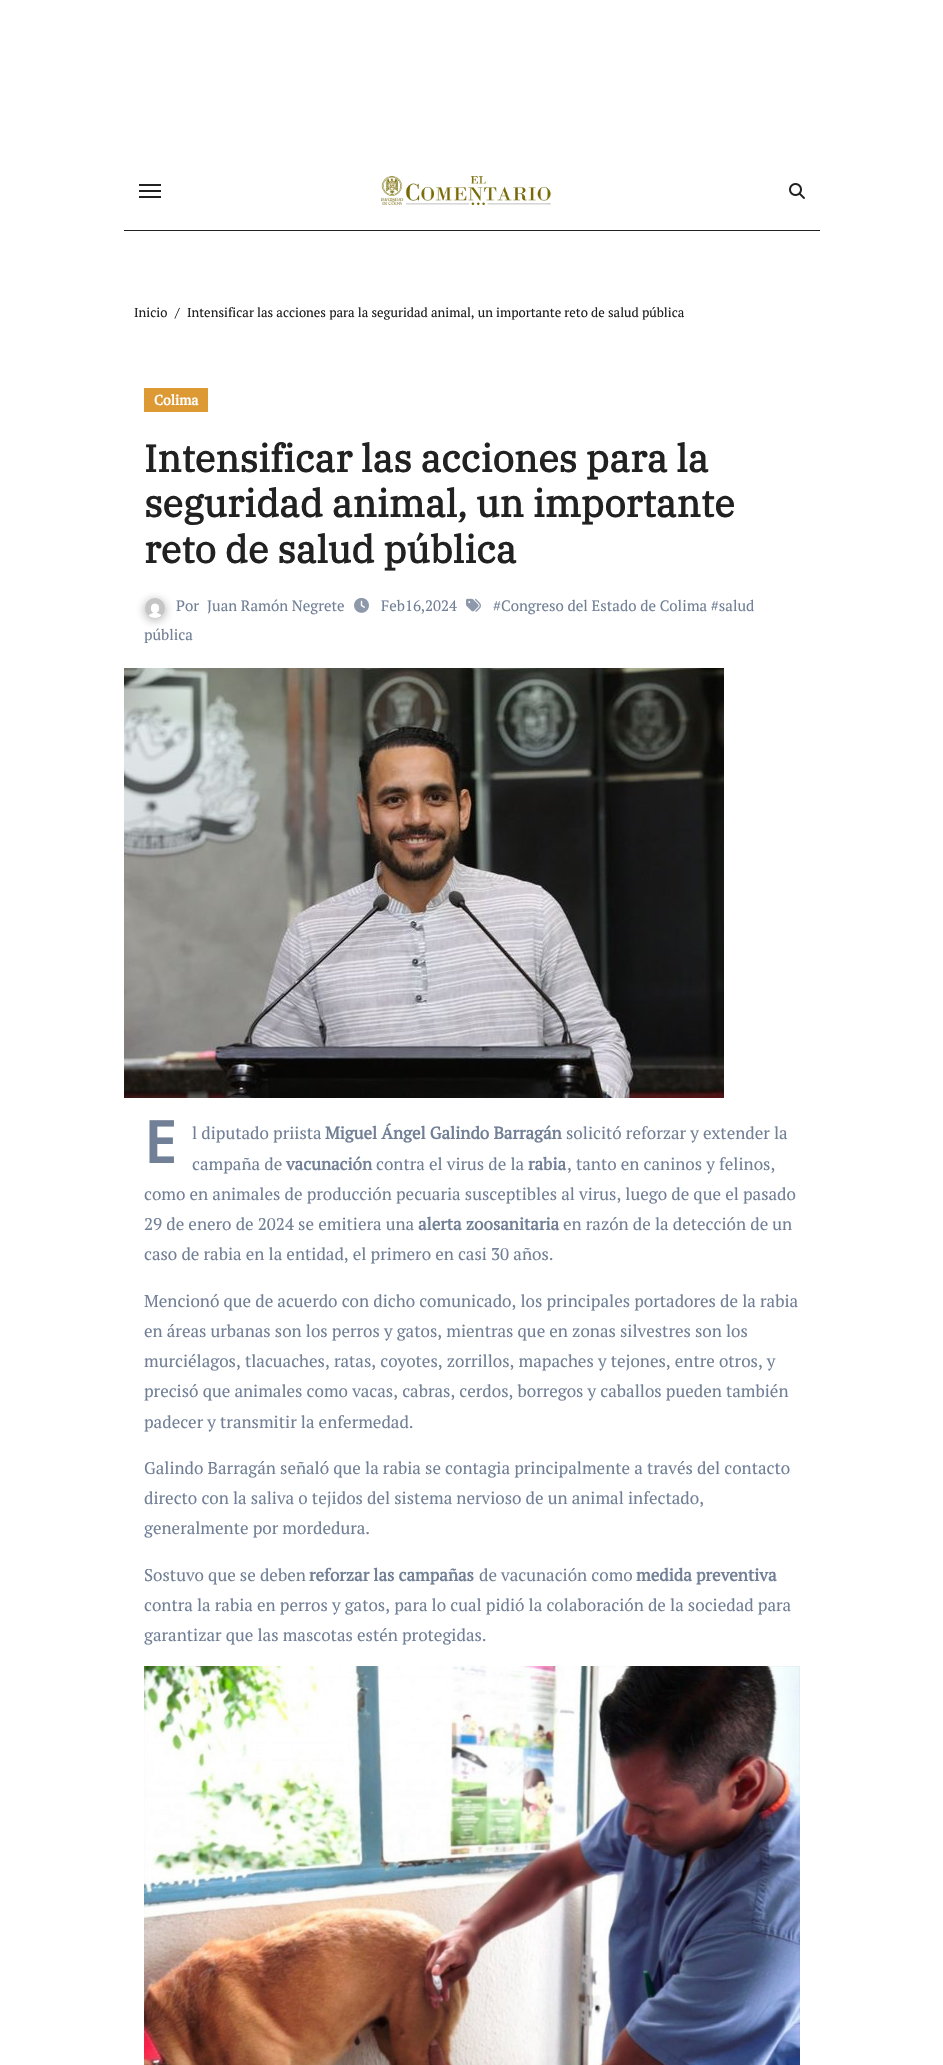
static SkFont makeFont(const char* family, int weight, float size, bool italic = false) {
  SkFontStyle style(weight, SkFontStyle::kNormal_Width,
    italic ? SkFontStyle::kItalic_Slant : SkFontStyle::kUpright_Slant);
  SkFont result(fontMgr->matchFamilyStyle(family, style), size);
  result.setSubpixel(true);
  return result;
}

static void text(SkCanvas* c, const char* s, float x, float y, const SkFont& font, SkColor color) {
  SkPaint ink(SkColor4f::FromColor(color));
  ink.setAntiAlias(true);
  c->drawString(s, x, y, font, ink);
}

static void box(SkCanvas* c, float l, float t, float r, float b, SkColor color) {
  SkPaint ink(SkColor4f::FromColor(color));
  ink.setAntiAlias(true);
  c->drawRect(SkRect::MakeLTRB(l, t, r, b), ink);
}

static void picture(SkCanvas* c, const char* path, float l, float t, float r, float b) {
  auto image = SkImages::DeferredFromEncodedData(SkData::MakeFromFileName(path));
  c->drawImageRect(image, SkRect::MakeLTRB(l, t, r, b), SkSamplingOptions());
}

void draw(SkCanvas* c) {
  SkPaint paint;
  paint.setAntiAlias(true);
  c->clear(0xffffffff);
  box(c, 124, 230, 820, 231, 0xff212121);
  box(c, 139, 184, 161, 186, 0xff212121);
  box(c, 139, 190, 161, 192, 0xff212121);
  box(c, 139, 196, 161, 198, 0xff212121);
  picture(c, "img_01.png", 381, 176, 551, 205);
  picture(c, "img_02.png", 789, 183, 805, 199);
  SkFont face1 = makeFont("PT Serif", 400, 13);
  text(c, "Inicio", 134, 317, face1, 0xff212121);
  text(c, "/", 175, 317, face1, 0xff000000);
  text(c, "Intensificar las acciones para la seguridad animal, un importante reto de salud pública", 187, 317, face1, 0xff212121);
  box(c, 144, 388, 208, 412, 0xffdd9933);
  SkFont face2 = makeFont("PT Serif", 700, 14);
  text(c, "Colima", 154, 405, face2, 0xffffffff);
  SkFont face3 = makeFont("IBM Plex Serif", 700, 38);
  text(c, "Intensificar las acciones para la", 144, 472, face3, 0xff212121);
  text(c, "seguridad animal, un importante", 144, 517, face3, 0xff212121);
  text(c, "reto de salud pública", 144, 563, face3, 0xff212121);
  paint.setColor(0x4d212121);
  paint.setMaskFilter(SkMaskFilter::MakeBlur(kNormal_SkBlurStyle, 4));
  c->drawRoundRect(SkRect::MakeLTRB(144, 599, 166, 621), 11, 11, paint);
  paint.setMaskFilter(nullptr);
  picture(c, "img_03.png", 145, 598, 165, 618);
  picture(c, "img_04.png", 466, 598, 481, 612);
  SkFont face4 = makeFont("PT Serif", 400, 15);
  text(c, "#Congreso del Estado de Colima #salud", 493, 611, face4, 0xff718096);
  text(c, "pública", 144, 640, face4, 0xff718096);
  text(c, "Por", 176, 611, face4, 0xff718096);
  text(c, "Juan Ramón Negrete", 207, 611, face4, 0xff718096);
  picture(c, "img_05.png", 354, 597, 369, 613);
  text(c, "Feb16,2024", 381, 611, face4, 0xff718096);
  picture(c, "img_06.png", 124, 668, 724, 1098);
  SkFont face5 = makeFont("Noto Sans", 600, 60);
  text(c, "E", 144, 1163, face5, 0xff718096);
  SkFont face6 = makeFont("PT Serif", 400, 17);
  text(c, "l diputado priista", 192, 1139, face6, 0xff718096);
  SkFont face7 = makeFont("PT Serif", 700, 17);
  text(c, "Miguel Ángel Galindo Barragán", 325, 1139, face7, 0xff718096);
  text(c, "solicitó reforzar y extender la", 566, 1139, face6, 0xff718096);
  text(c, "campaña de", 192, 1170, face6, 0xff718096);
  text(c, "vacunación", 286, 1170, face7, 0xff718096);
  text(c, "contra el virus de la", 376, 1170, face6, 0xff718096);
  text(c, "rabia", 528, 1170, face7, 0xff718096);
  text(c, ", tanto en caninos y felinos,", 567, 1170, face6, 0xff718096);
  text(c, "como en animales de producción pecuaria susceptibles al virus, luego de que el pasado", 144, 1200, face6, 0xff718096);
  text(c, "29 de enero de 2024 se emitiera una", 144, 1230, face6, 0xff718096);
  text(c, "alerta zoosanitaria", 418, 1230, face7, 0xff718096);
  text(c, "en razón de la detección de un", 563, 1230, face6, 0xff718096);
  text(c, "caso de rabia en la entidad, el primero en casi 30 años.", 144, 1260, face6, 0xff718096);
  text(c, "Mencionó que de acuerdo con dicho comunicado, los principales portadores de la rabia", 144, 1307, face6, 0xff718096);
  text(c, "en áreas urbanas son los perros y gatos, mientras que en zonas silvestres son los", 144, 1337, face6, 0xff718096);
  text(c, "murciélagos, tlacuaches, ratas, coyotes, zorrillos, mapaches y tejones, entre otros, y", 144, 1367, face6, 0xff718096);
  text(c, "precisó que animales como vacas, cabras, cerdos, borregos y caballos pueden también", 144, 1397, face6, 0xff718096);
  text(c, "padecer y transmitir la enfermedad.", 144, 1428, face6, 0xff718096);
  text(c, "Galindo Barragán señaló que la rabia se contagia principalmente a través del contacto", 144, 1474, face6, 0xff718096);
  text(c, "directo con la saliva o tejidos del sistema nervioso de un animal infectado,", 144, 1504, face6, 0xff718096);
  text(c, "generalmente por mordedura.", 144, 1534, face6, 0xff718096);
  text(c, "Sostuvo que se deben", 144, 1581, face6, 0xff718096);
  text(c, "reforzar las campañas", 309, 1581, face7, 0xff718096);
  text(c, "de vacunación como", 479, 1581, face6, 0xff718096);
  text(c, "medida preventiva", 636, 1581, face7, 0xff718096);
  text(c, "contra la rabia en perros y gatos, para lo cual pidió la colaboración de la sociedad para", 144, 1611, face6, 0xff718096);
  text(c, "garantizar que las mascotas estén protegidas.", 144, 1641, face6, 0xff718096);
  picture(c, "img_07.png", 144, 1666, 800, 2065);
}
